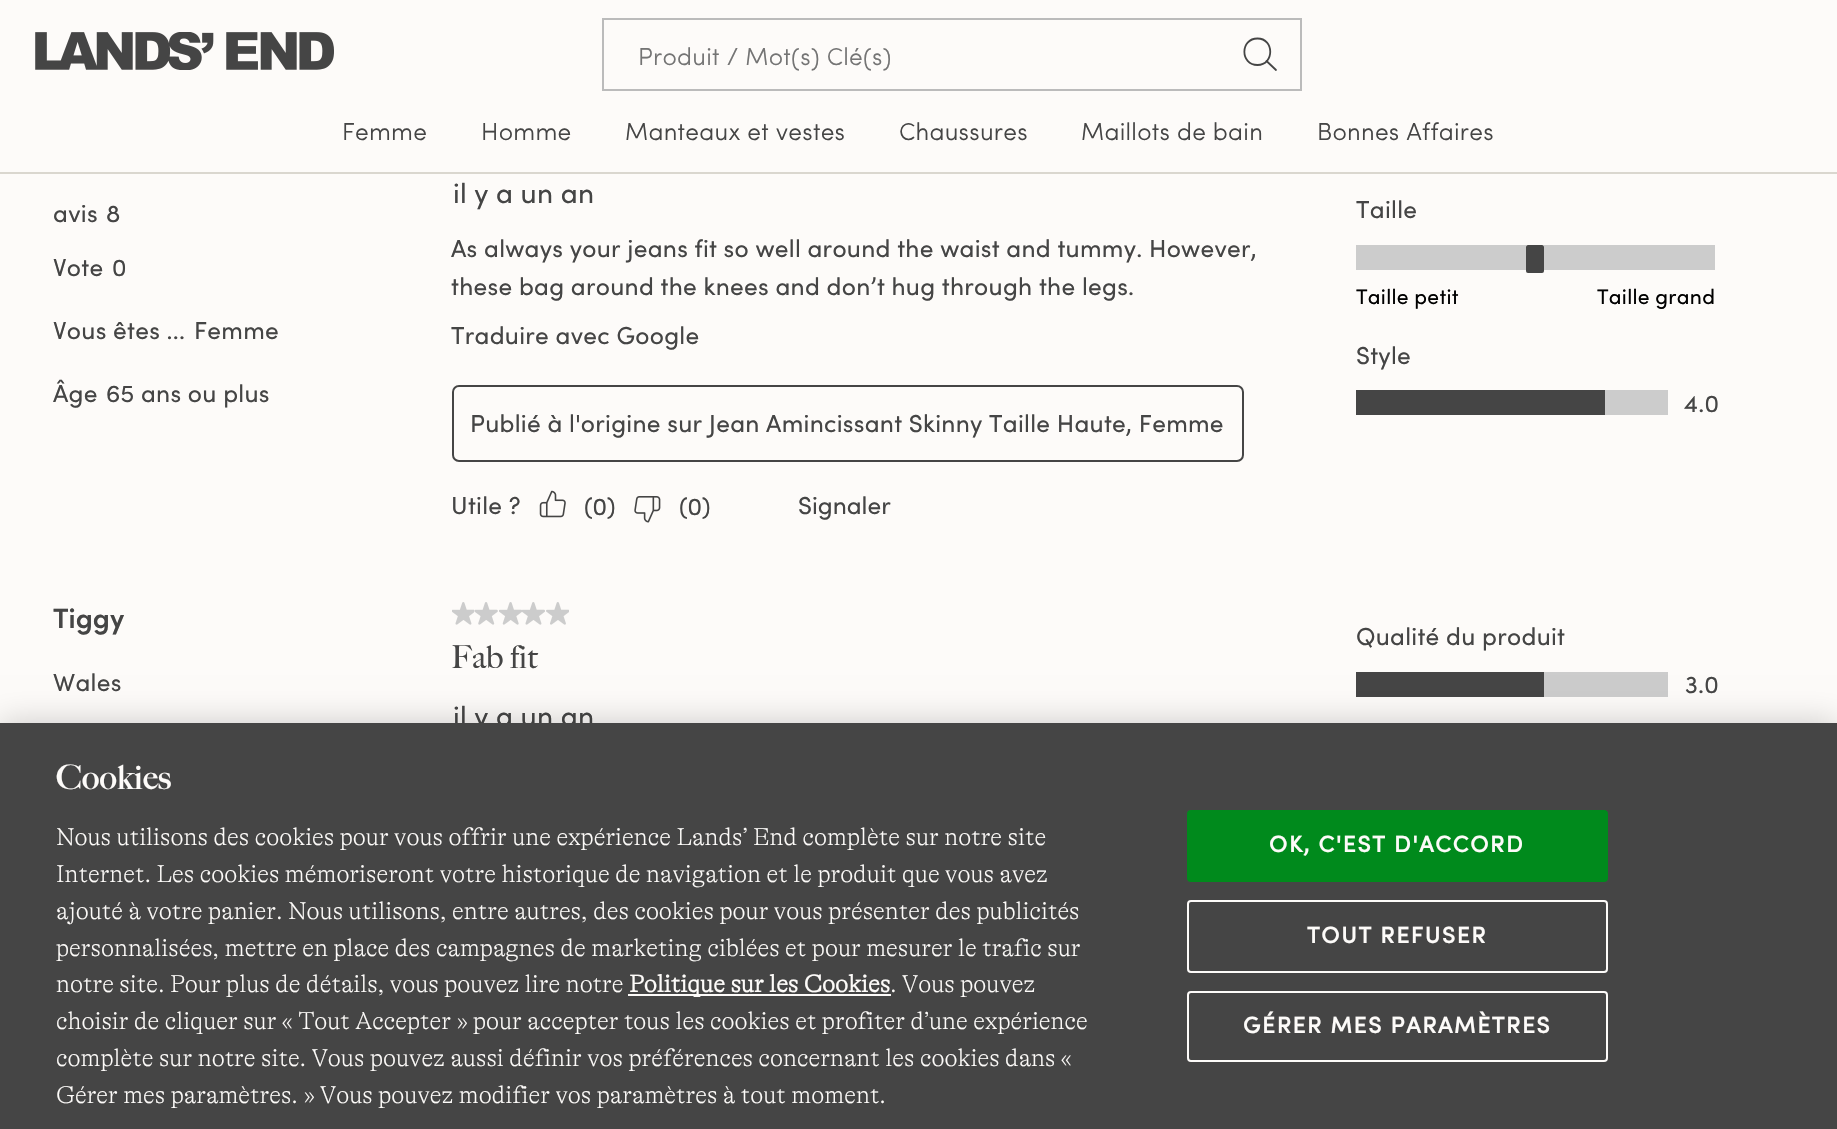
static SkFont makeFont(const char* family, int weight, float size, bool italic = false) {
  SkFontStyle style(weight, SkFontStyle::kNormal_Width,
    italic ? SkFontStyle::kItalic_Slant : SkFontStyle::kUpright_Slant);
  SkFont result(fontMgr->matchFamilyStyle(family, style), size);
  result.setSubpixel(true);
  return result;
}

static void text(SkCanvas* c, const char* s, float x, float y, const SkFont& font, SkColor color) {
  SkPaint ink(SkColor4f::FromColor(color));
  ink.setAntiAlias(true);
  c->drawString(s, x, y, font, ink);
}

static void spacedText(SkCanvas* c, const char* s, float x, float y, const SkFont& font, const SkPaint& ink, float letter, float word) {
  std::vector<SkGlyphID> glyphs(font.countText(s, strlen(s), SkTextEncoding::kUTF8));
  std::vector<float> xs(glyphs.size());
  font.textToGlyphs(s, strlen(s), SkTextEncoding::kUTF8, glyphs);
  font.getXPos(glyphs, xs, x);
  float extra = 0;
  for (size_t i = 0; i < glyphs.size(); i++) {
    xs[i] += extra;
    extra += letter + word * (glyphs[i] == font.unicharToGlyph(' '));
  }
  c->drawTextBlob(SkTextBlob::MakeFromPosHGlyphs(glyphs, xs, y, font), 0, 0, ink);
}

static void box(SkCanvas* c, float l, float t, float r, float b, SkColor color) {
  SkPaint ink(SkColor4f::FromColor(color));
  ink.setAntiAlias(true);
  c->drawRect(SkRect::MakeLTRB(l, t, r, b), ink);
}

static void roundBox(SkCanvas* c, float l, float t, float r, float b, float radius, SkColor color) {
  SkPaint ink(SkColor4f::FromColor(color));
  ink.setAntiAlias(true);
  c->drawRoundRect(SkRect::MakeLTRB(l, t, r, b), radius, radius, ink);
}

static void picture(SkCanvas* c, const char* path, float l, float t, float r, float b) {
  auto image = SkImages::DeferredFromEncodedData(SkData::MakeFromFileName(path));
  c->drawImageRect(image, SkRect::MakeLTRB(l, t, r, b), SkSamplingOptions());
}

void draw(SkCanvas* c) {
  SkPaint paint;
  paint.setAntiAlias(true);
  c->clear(0xfffdfbf9);
  box(c, 0, 172, 1837, 174, 0xffdad7cf);
  picture(c, "img_01.png", 35, 32, 334, 70);
  paint.setStyle(SkPaint::kStroke_Style);
  paint.setStrokeWidth(2);
  paint.setColor(0xffbbbbbb);
  c->drawRect(SkRect::MakeLTRB(603, 19, 1301, 90), paint);
  SkFont face1 = makeFont("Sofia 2", 400, 24.5f);
  paint.setStyle(SkPaint::kFill_Style);
  paint.setColor(0xff747474);
  spacedText(c, "Produit / Mot(s) Clé(s)", 638, 65, face1, paint, 0.25f, 0);
  paint.setStyle(SkPaint::kStroke_Style);
  paint.setStrokeWidth(1.8f);
  paint.setColor(0xff454545);
  c->drawPath(SkPathBuilder().moveTo(1257.5f, 65).cubicTo(1274.5f, 65, 1274.5f, 38.5f, 1257.5f, 38.5f).cubicTo(1240, 38.5f, 1240, 65, 1257.5f, 65).close().detach(), paint);
  paint.setStrokeCap(SkPaint::kRound_Cap);
  c->drawPath(SkPathBuilder().moveTo(1266.5f, 61).lineTo(1276, 70).detach(), paint);
  paint.setStyle(SkPaint::kFill_Style);
  spacedText(c, "Femme", 342, 140, face1, paint, 0.25f, 0);
  spacedText(c, "Homme", 481, 140, face1, paint, 0.25f, 0);
  spacedText(c, "Manteaux et vestes", 625, 140, face1, paint, 0.25f, 0);
  spacedText(c, "Chaussures", 899, 140, face1, paint, 0.25f, 0);
  spacedText(c, "Maillots de bain", 1081, 140, face1, paint, 0.25f, 0);
  spacedText(c, "Bonnes Affaires", 1317, 140, face1, paint, 0.25f, 0);
  SkFont face2 = makeFont("Sofia", 400, 24.5f);
  spacedText(c, "avis", 53, 222, face2, paint, 0.28f, 0);
  spacedText(c, "8", 106, 222, face2, paint, 0.28f, 0);
  spacedText(c, "Vote", 53, 276, face2, paint, 0.28f, 0);
  spacedText(c, "0", 112, 276, face2, paint, 0.28f, 0);
  spacedText(c, "Vous êtes ...", 53, 339, face2, paint, 0.28f, 0);
  spacedText(c, "Femme", 194, 339, face2, paint, 0.28f, 0);
  spacedText(c, "Âge", 53, 402, face2, paint, 0.28f, 0);
  spacedText(c, "65 ans ou plus", 106, 402, face2, paint, 0.28f, 0);
  SkFont face3 = makeFont("Sofia", 400, 28);
  spacedText(c, "il y a un an", 453, 203, face3, paint, 0.28f, 0);
  spacedText(c, "As always your jeans fit so well around the waist and tummy. However,", 451, 257, face2, paint, 0.28f, 0);
  spacedText(c, "these bag around the knees and don’t hug through the legs.", 451, 295, face2, paint, 0.28f, 0);
  spacedText(c, "Traduire avec Google", 451, 344, face2, paint, 0.28f, 0);
  paint.setStyle(SkPaint::kStroke_Style);
  paint.setStrokeWidth(2);
  paint.setStrokeCap(SkPaint::kButt_Cap);
  c->drawRoundRect(SkRect::MakeLTRB(453, 386, 1243, 461), 6, 6, paint);
  paint.setStyle(SkPaint::kFill_Style);
  spacedText(c, "Publié à l'origine sur Jean Amincissant Skinny Taille Haute, Femme", 470, 432, face2, paint, 0.28f, 0);
  spacedText(c, "Utile ?", 451, 514, face2, paint, 0.28f, 0);
  picture(c, "img_02.png", 539, 490, 566, 518);
  text(c, "(0)", 584, 515, face2, 0xff454545);
  picture(c, "img_03.png", 634, 496, 661, 523);
  text(c, "(0)", 679, 515, face2, 0xff454545);
  text(c, "Signaler", 798, 514, face2, 0xff454545);
  spacedText(c, "Taille", 1356, 218, face2, paint, 0.28f, 0);
  box(c, 1356, 245, 1526, 270, 0xffcccccc);
  roundBox(c, 1526, 245, 1544, 273, 2, 0xff454545);
  box(c, 1544, 245, 1715, 270, 0xffcccccc);
  SkFont face4 = makeFont("Sofia", 400, 21);
  paint.setColor(0xff000000);
  spacedText(c, "Taille petit", 1356, 304, face4, paint, 0.28f, 0);
  spacedText(c, "Taille grand", 1597, 304, face4, paint, 0.28f, 0);
  paint.setColor(0xff454545);
  spacedText(c, "Style", 1356, 364, face2, paint, 0.28f, 0);
  box(c, 1605, 390, 1668, 415, 0xffcccccc);
  box(c, 1356, 390, 1605, 415, 0xff454545);
  spacedText(c, "4.0", 1684, 412, face2, paint, 0.28f, 0);
  SkFont face5 = makeFont("Sofia", 700, 28);
  text(c, "Tiggy", 53, 628, face5, 0xff454545);
  spacedText(c, "Wales", 53, 691, face2, paint, 0.28f, 0);
  picture(c, "img_04.png", 452, 602, 474, 625);
  picture(c, "img_05.png", 474, 602, 498, 625);
  picture(c, "img_06.png", 499, 602, 522, 625);
  picture(c, "img_07.png", 522, 602, 545, 625);
  picture(c, "img_08.png", 546, 602, 569, 625);
  SkFont face6 = makeFont("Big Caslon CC", 400, 31.5f);
  spacedText(c, "Fab fit", 451, 668, face6, paint, 0.25f, 0);
  spacedText(c, "il y a un an", 453, 726, face3, paint, 0.28f, 0);
  spacedText(c, "Qualité du produit", 1356, 645, face2, paint, 0.28f, 0);
  box(c, 1544, 672, 1668, 697, 0xffcccccc);
  box(c, 1356, 672, 1544, 697, 0xff454545);
  spacedText(c, "3.0", 1685, 693, face2, paint, 0.28f, 0);
  paint.setColor(0x33000000);
  paint.setMaskFilter(SkMaskFilter::MakeBlur(kNormal_SkBlurStyle, 16));
  c->drawRect(SkRect::MakeLTRB(0, 723, 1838, 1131), paint);
  paint.setMaskFilter(nullptr);
  box(c, 0, 723, 1837, 1129, 0xff454545);
  SkFont face7 = makeFont("Big Caslon CC", 700, 33.5f);
  paint.setColor(0xfffdfbf9);
  spacedText(c, "Cookies", 56, 789, face7, paint, 0.25f, 0);
  SkFont face8 = makeFont("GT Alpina", 100, 24.5f);
  text(c, "Nous utilisons des cookies pour vous offrir une expérience Lands’ End complète sur notre site", 56, 845, face8, 0xfffdfbf9);
  text(c, "Internet. Les cookies mémoriseront votre historique de navigation et le produit que vous avez", 56, 882, face8, 0xfffdfbf9);
  text(c, "ajouté à votre panier. Nous utilisons, entre autres, des cookies pour vous présenter des publicités", 56, 919, face8, 0xfffdfbf9);
  text(c, "personnalisées, mettre en place des campagnes de marketing ciblées et pour mesurer le trafic sur", 56, 956, face8, 0xfffdfbf9);
  text(c, "notre site. Pour plus de détails, vous pouvez lire notre", 56, 992, face8, 0xfffdfbf9);
  box(c, 628, 994, 891, 996, 0xfffdfbf9);
  SkFont face9 = makeFont("GT Alpina", 700, 24.5f);
  text(c, "Politique sur les Cookies", 629, 992, face9, 0xfffdfbf9);
  text(c, ". Vous pouvez", 890, 992, face8, 0xfffdfbf9);
  text(c, "choisir de cliquer sur « Tout Accepter » pour accepter tous les cookies et profiter d’une expérience", 56, 1029, face8, 0xfffdfbf9);
  text(c, "complète sur notre site. Vous pouvez aussi définir vos préférences concernant les cookies dans «", 56, 1066, face8, 0xfffdfbf9);
  text(c, "Gérer mes paramètres. » Vous pouvez modifier vos paramètres à tout moment.", 56, 1103, face8, 0xfffdfbf9);
  paint.setColor(0xff008a1c);
  c->drawRoundRect(SkRect::MakeLTRB(1188, 811, 1607, 881), 3, 3, paint);
  paint.setStyle(SkPaint::kStroke_Style);
  c->drawRoundRect(SkRect::MakeLTRB(1188, 811, 1607, 881), 3, 3, paint);
  SkFont face10 = makeFont("Sofia 2", 700, 22.75f);
  paint.setStyle(SkPaint::kFill_Style);
  paint.setColor(0xfffdfbf9);
  spacedText(c, "OK, C'EST D'ACCORD", 1269, 852, face10, paint, 1.8f, 0);
  paint.setStyle(SkPaint::kStroke_Style);
  c->drawRoundRect(SkRect::MakeLTRB(1188, 901, 1607, 972), 3, 3, paint);
  paint.setStyle(SkPaint::kFill_Style);
  spacedText(c, "TOUT REFUSER", 1307, 943, face10, paint, 1.8f, 0);
  paint.setStyle(SkPaint::kStroke_Style);
  c->drawRoundRect(SkRect::MakeLTRB(1188, 992, 1607, 1061), 3, 3, paint);
  paint.setStyle(SkPaint::kFill_Style);
  spacedText(c, "GÉRER MES PARAMÈTRES", 1243, 1033, face10, paint, 1.8f, 0);
}
